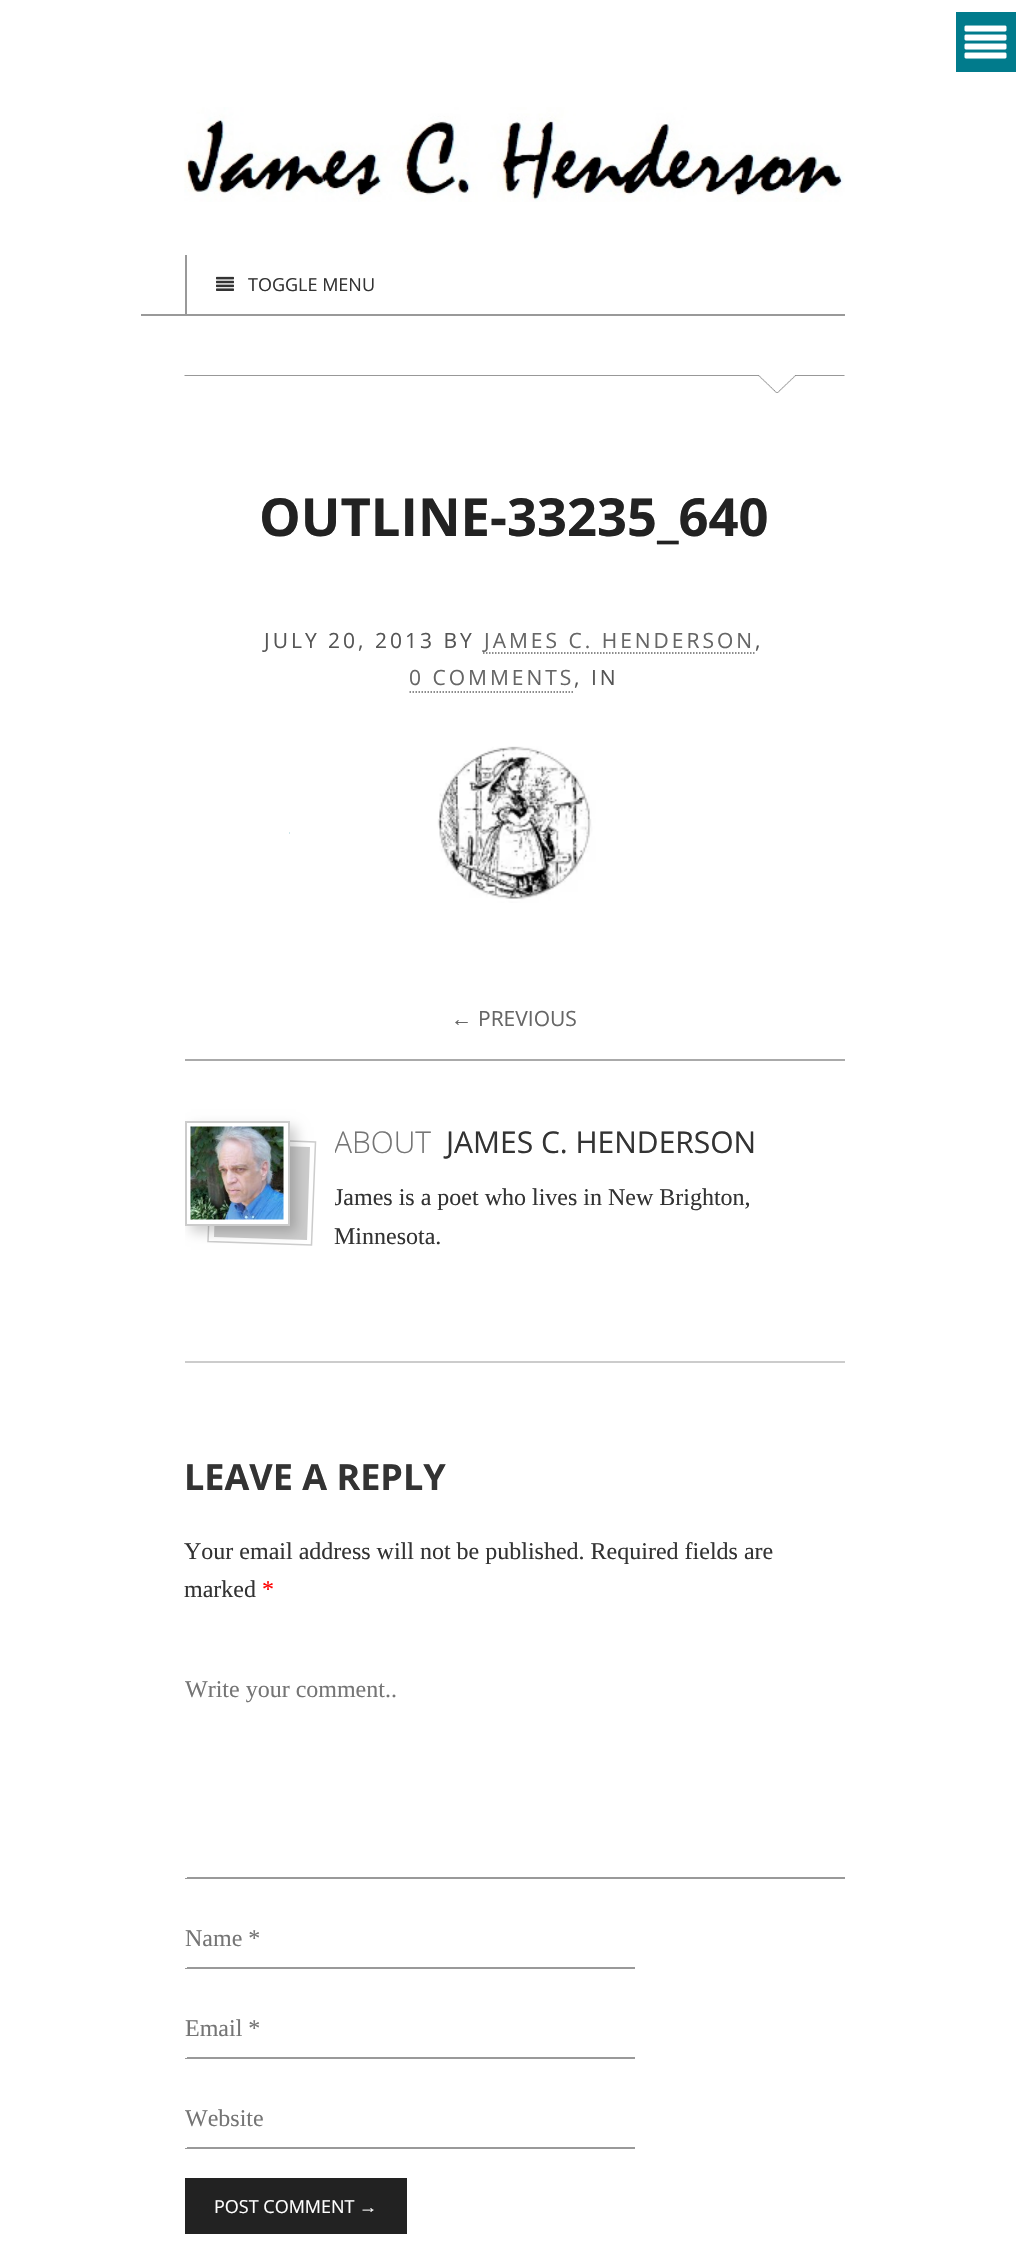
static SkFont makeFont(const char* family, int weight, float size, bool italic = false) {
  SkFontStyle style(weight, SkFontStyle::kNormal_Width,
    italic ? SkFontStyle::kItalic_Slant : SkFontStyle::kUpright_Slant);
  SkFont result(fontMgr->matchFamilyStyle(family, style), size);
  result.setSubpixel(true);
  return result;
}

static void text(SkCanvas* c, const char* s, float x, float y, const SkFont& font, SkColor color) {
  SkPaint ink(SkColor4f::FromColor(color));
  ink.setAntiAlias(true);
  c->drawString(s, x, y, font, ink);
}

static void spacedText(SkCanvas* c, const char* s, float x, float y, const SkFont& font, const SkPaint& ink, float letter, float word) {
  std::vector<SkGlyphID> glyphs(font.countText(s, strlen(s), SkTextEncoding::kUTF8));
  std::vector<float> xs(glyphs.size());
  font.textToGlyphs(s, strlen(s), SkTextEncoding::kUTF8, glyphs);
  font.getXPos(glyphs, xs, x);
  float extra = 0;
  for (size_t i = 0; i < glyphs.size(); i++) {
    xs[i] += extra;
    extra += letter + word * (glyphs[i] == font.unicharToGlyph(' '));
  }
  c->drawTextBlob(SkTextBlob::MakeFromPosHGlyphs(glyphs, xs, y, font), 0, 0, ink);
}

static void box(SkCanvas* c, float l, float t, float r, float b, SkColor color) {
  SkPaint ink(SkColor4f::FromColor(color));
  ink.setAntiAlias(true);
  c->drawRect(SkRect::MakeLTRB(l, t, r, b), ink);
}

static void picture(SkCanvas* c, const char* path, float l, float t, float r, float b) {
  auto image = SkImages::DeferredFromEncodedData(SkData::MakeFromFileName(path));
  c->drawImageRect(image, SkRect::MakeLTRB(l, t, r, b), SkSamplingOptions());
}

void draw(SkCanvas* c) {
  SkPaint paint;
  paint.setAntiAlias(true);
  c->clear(0xffffffff);
  picture(c, "img_01.png", 184, 107, 845, 202);
  box(c, 185, 314, 845, 316, 0xff999999);
  box(c, 185, 255, 187, 315, 0xff999999);
  picture(c, "img_02.png", 216, 276, 234, 291);
  SkFont face1 = makeFont("Open Sans", 400, 18);
  text(c, "TOGGLE MENU", 248, 291, face1, 0xff333333);
  box(c, 141, 314, 186, 316, 0xff999999);
  picture(c, "img_03.png", 184, 375, 845, 393);
  box(c, 956, 12, 1016, 72, 0xff017b8c);
  picture(c, "img_04.png", 964, 25, 1007, 59);
  SkFont face2 = makeFont("Open Sans", 700, 52.5f);
  text(c, "OUTLINE-33235_640", 259, 536, face2, 0xff222222);
  SkFont face3 = makeFont("Open Sans", 400, 21);
  paint.setColor(0xff555555);
  spacedText(c, "JULY 20, 2013 BY", 264, 648, face3, paint, 3, 0);
  paint.setStyle(SkPaint::kStroke_Style);
  paint.setStrokeWidth(1.5f);
  paint.setColor(0xff666666);
  paint.setPathEffect(SkDashPathEffect::Make({{1.5f, 1.5f}}, 0));
  c->drawPath(SkPathBuilder().moveTo(483, 653).lineTo(754.5f, 653).detach(), paint);
  paint.setPathEffect(nullptr);
  paint.setStyle(SkPaint::kFill_Style);
  spacedText(c, "JAMES C. HENDERSON", 484, 648, face3, paint, 3, 0);
  paint.setColor(0xff555555);
  spacedText(c, ",", 755, 648, face3, paint, 3, 0);
  paint.setStyle(SkPaint::kStroke_Style);
  paint.setColor(0xff666666);
  paint.setPathEffect(SkDashPathEffect::Make({{1.5f, 1.5f}}, 0));
  c->drawPath(SkPathBuilder().moveTo(409.5f, 692).lineTo(574.5f, 692).detach(), paint);
  paint.setPathEffect(nullptr);
  paint.setStyle(SkPaint::kFill_Style);
  spacedText(c, "0 COMMENTS", 409, 685, face3, paint, 3, 0);
  paint.setColor(0xff555555);
  spacedText(c, ", IN", 574, 685, face3, paint, 3, 0);
  paint.setStyle(SkPaint::kStroke_Style);
  paint.setColor(0xff017b8e);
  paint.setPathEffect(SkDashPathEffect::Make({{1.5f, 1.5f}}, 0));
  c->drawPath(SkPathBuilder().moveTo(289.5f, 833).lineTo(739.5f, 833).detach(), paint);
  paint.setPathEffect(nullptr);
  picture(c, "img_05.png", 289, 746, 738, 903);
  box(c, 185, 1059, 845, 1061, 0xffaaaaaa);
  SkFont face4 = makeFont("Liberation Sans", 400, 21);
  text(c, "←", 451, 1026, face4, 0xff666666);
  text(c, "PREVIOUS", 478, 1026, face3, 0xff666666);
  box(c, 185, 1361, 845, 1363, 0xffcccccc);
  paint.setColor(0xffcccccc);
  c->drawPath(SkPathBuilder().moveTo(212, 1138).lineTo(315.5f, 1142).lineTo(311.5f, 1245).lineTo(208, 1241.5f).close().detach(), paint);
  paint.setStyle(SkPaint::kFill_Style);
  c->drawPath(SkPathBuilder().moveTo(217, 1144).lineTo(310, 1147).lineTo(307, 1240).lineTo(214, 1237).close().detach(), paint);
  c->save();
  c->clipRect(SkRect::MakeLTRB(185, 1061, 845, 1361));
  paint.setColor(0x33000000);
  paint.setMaskFilter(SkMaskFilter::MakeBlur(kNormal_SkBlurStyle, 6));
  c->drawRect(SkRect::MakeLTRB(191, 1127, 296, 1232), paint);
  paint.setMaskFilter(nullptr);
  c->restore();
  paint.setColor(0xffffffff);
  c->drawRect(SkRect::MakeLTRB(186, 1122, 289, 1225), paint);
  paint.setStyle(SkPaint::kStroke_Style);
  paint.setStrokeWidth(2);
  paint.setColor(0xffcccccc);
  c->drawRect(SkRect::MakeLTRB(186, 1122, 289, 1225), paint);
  picture(c, "img_06.png", 190, 1126, 284, 1220);
  c->save();
  c->clipRect(SkRect::MakeLTRB(335, 1121, 845, 1301));
  SkFont face5 = makeFont("Open Sans", 300, 30);
  text(c, "ABOUT", 334, 1153, face5, 0xff757575);
  c->restore();
  SkFont face6 = makeFont("Open Sans", 400, 30);
  text(c, "JAMES C. HENDERSON", 446, 1153, face6, 0xff333333);
  c->save();
  c->clipRect(SkRect::MakeLTRB(335, 1121, 845, 1301));
  SkFont face7 = makeFont("Liberation Serif", 400, 24);
  text(c, "James is a poet who lives in New Brighton,", 334, 1205, face7, 0xff333333);
  c->restore();
  text(c, "Minnesota.", 334, 1244, face7, 0xff333333);
  SkFont face8 = makeFont("Open Sans", 700, 36);
  text(c, "LEAVE A REPLY", 184, 1490, face8, 0xff333333);
  text(c, "Your email address will not be published. Required fields are", 184, 1559, face7, 0xff333333);
  text(c, "marked", 184, 1597, face7, 0xff333333);
  text(c, "*", 262, 1597, face7, 0xffff0000);
  box(c, 185, 1877, 845, 1879, 0xff999999);
  box(c, 185, 1877, 187, 1878, 0xffffffff);
  text(c, "Write your comment..", 185, 1697, face7, 0xff757575);
  box(c, 185, 1967, 635, 1969, 0xff999999);
  box(c, 185, 1967, 187, 1968, 0xffffffff);
  text(c, "Name *", 185, 1946, face7, 0xff757575);
  box(c, 185, 2057, 635, 2059, 0xff999999);
  box(c, 185, 2057, 187, 2058, 0xffffffff);
  text(c, "Email *", 185, 2036, face7, 0xff757575);
  box(c, 185, 2147, 635, 2149, 0xff999999);
  box(c, 185, 2147, 187, 2148, 0xffffffff);
  text(c, "Website", 185, 2126, face7, 0xff757575);
  box(c, 185, 2178, 407, 2234, 0xff222222);
  text(c, "POST COMMENT", 214, 2213, face1, 0xffffffff);
  SkFont face9 = makeFont("Liberation Sans", 400, 18);
  text(c, "→", 359, 2213, face9, 0xffffffff);
}
